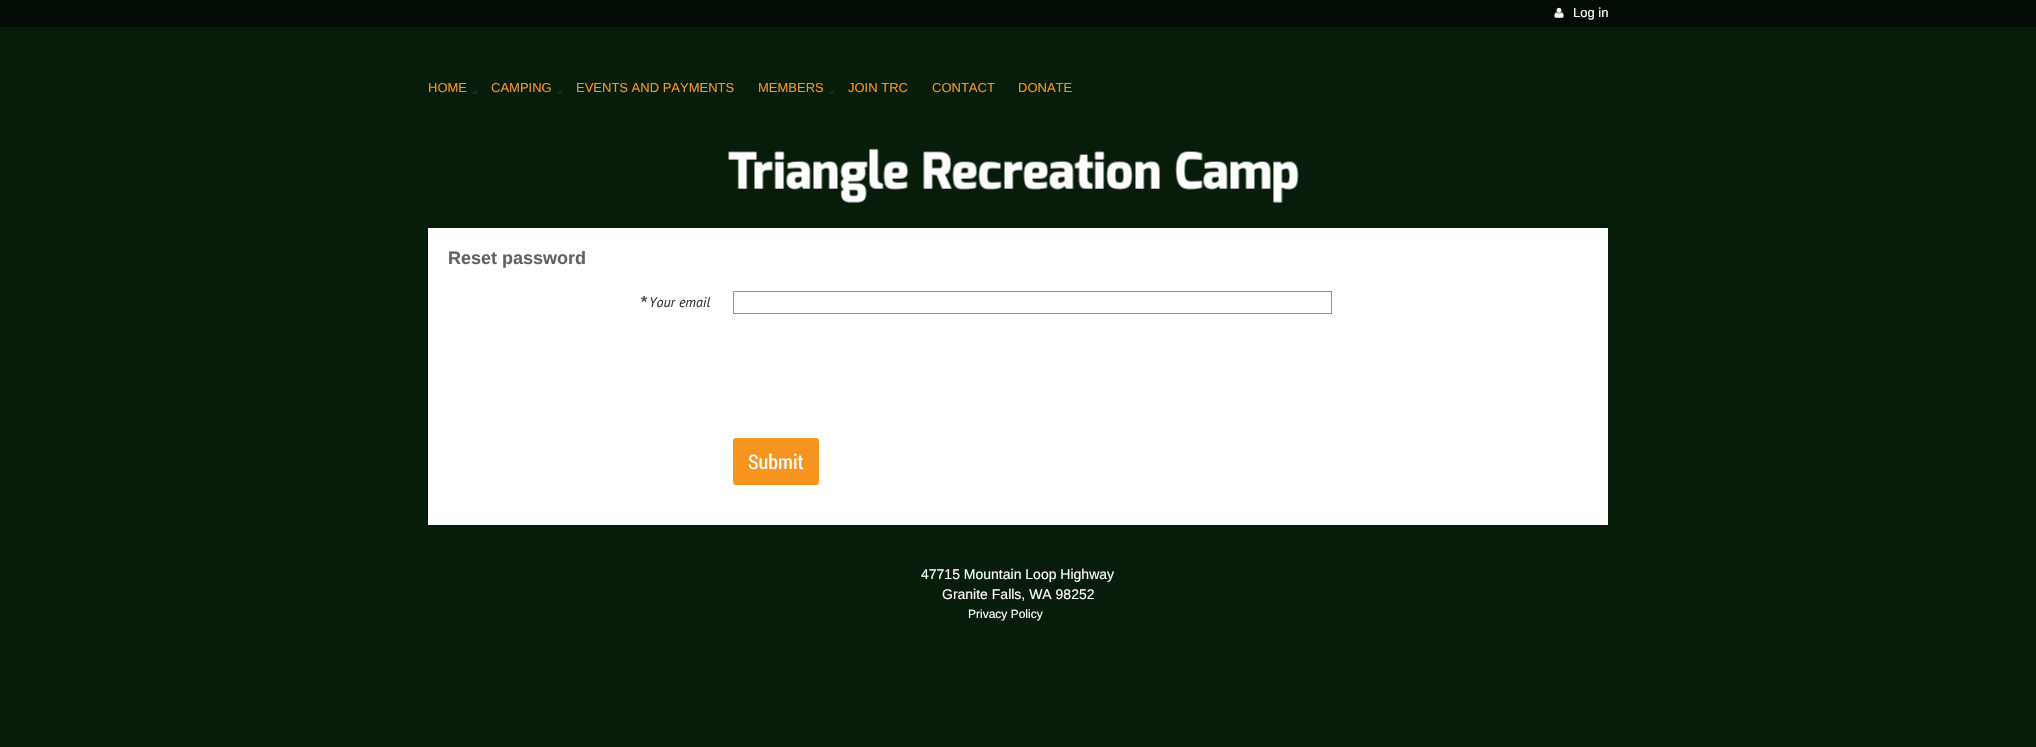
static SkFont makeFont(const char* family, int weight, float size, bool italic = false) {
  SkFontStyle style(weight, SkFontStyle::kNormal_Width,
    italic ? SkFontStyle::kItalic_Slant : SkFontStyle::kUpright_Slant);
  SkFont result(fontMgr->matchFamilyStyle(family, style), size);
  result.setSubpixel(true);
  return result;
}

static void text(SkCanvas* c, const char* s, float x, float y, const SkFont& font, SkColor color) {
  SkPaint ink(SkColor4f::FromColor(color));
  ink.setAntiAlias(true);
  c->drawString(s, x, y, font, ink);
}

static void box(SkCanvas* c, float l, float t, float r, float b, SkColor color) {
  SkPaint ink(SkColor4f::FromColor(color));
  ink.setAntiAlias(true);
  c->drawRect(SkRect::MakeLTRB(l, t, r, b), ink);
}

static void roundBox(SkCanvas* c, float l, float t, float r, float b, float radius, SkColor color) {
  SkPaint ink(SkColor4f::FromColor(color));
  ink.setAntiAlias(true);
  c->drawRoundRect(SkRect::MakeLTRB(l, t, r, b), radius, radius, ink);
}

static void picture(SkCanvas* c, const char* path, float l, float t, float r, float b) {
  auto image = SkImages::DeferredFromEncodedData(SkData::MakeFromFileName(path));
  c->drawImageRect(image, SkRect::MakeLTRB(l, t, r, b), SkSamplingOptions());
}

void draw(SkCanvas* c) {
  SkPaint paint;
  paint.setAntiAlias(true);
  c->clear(0xff071d09);
  box(c, 0, 0, 2036, 27, 0xff030c04);
  picture(c, "img_01.png", 1554, 7, 1564, 18);
  SkFont face1 = makeFont("Liberation Sans", 400, 13);
  text(c, "Log in", 1573, 17, face1, 0xffffffff);
  text(c, "HOME", 428, 92, face1, 0xfff7941d);
  paint.setColor(0xff033333);
  c->drawPath(SkPathBuilder().moveTo(477, 94).lineTo(472, 94).lineTo(477, 89).close().detach(), paint);
  text(c, "CAMPING", 491, 92, face1, 0xfff7941d);
  c->drawPath(SkPathBuilder().moveTo(562, 94).lineTo(557, 94).lineTo(562, 89).close().detach(), paint);
  text(c, "EVENTS AND PAYMENTS", 576, 92, face1, 0xfff7941d);
  text(c, "MEMBERS", 758, 92, face1, 0xfff7941d);
  c->drawPath(SkPathBuilder().moveTo(834, 94).lineTo(829, 94).lineTo(834, 89).close().detach(), paint);
  text(c, "JOIN TRC", 848, 92, face1, 0xfff7941d);
  text(c, "CONTACT", 932, 92, face1, 0xfff7941d);
  text(c, "DONATE", 1018, 92, face1, 0xfff7941d);
  picture(c, "img_02.png", 728, 148, 1299, 203);
  box(c, 428, 228, 1608, 525, 0xffffffff);
  SkFont face2 = makeFont("Liberation Sans", 700, 18);
  text(c, "Reset password", 448, 264, face2, 0xff626262);
  SkFont face3 = makeFont("Liberation Sans", 700, 16);
  text(c, "*", 641, 307, face3, 0xff51534a);
  SkFont face4 = makeFont("PT Sans", 400, 14, true);
  text(c, "Your email", 649, 307, face4, 0xff333333);
  paint.setStyle(SkPaint::kStroke_Style);
  paint.setStrokeWidth(1);
  paint.setColor(0xff919191);
  c->drawRect(SkRect::MakeLTRB(733.5f, 291.5f, 1331.5f, 313.5f), paint);
  roundBox(c, 733, 438, 819, 485, 3, 0xfff7941d);
  SkFont face5 = makeFont("Roboto Condensed", 400, 20);
  text(c, "Submit", 748, 469, face5, 0xffffffff);
  SkFont face6 = makeFont("Liberation Sans", 400, 14);
  text(c, "47715 Mountain Loop Highway", 921, 579, face6, 0xffffffff);
  text(c, "Granite Falls, WA 98252", 942, 599, face6, 0xffffffff);
  SkFont face7 = makeFont("Liberation Sans", 400, 12);
  text(c, "Privacy Policy", 968, 618, face7, 0xffffffff);
}
